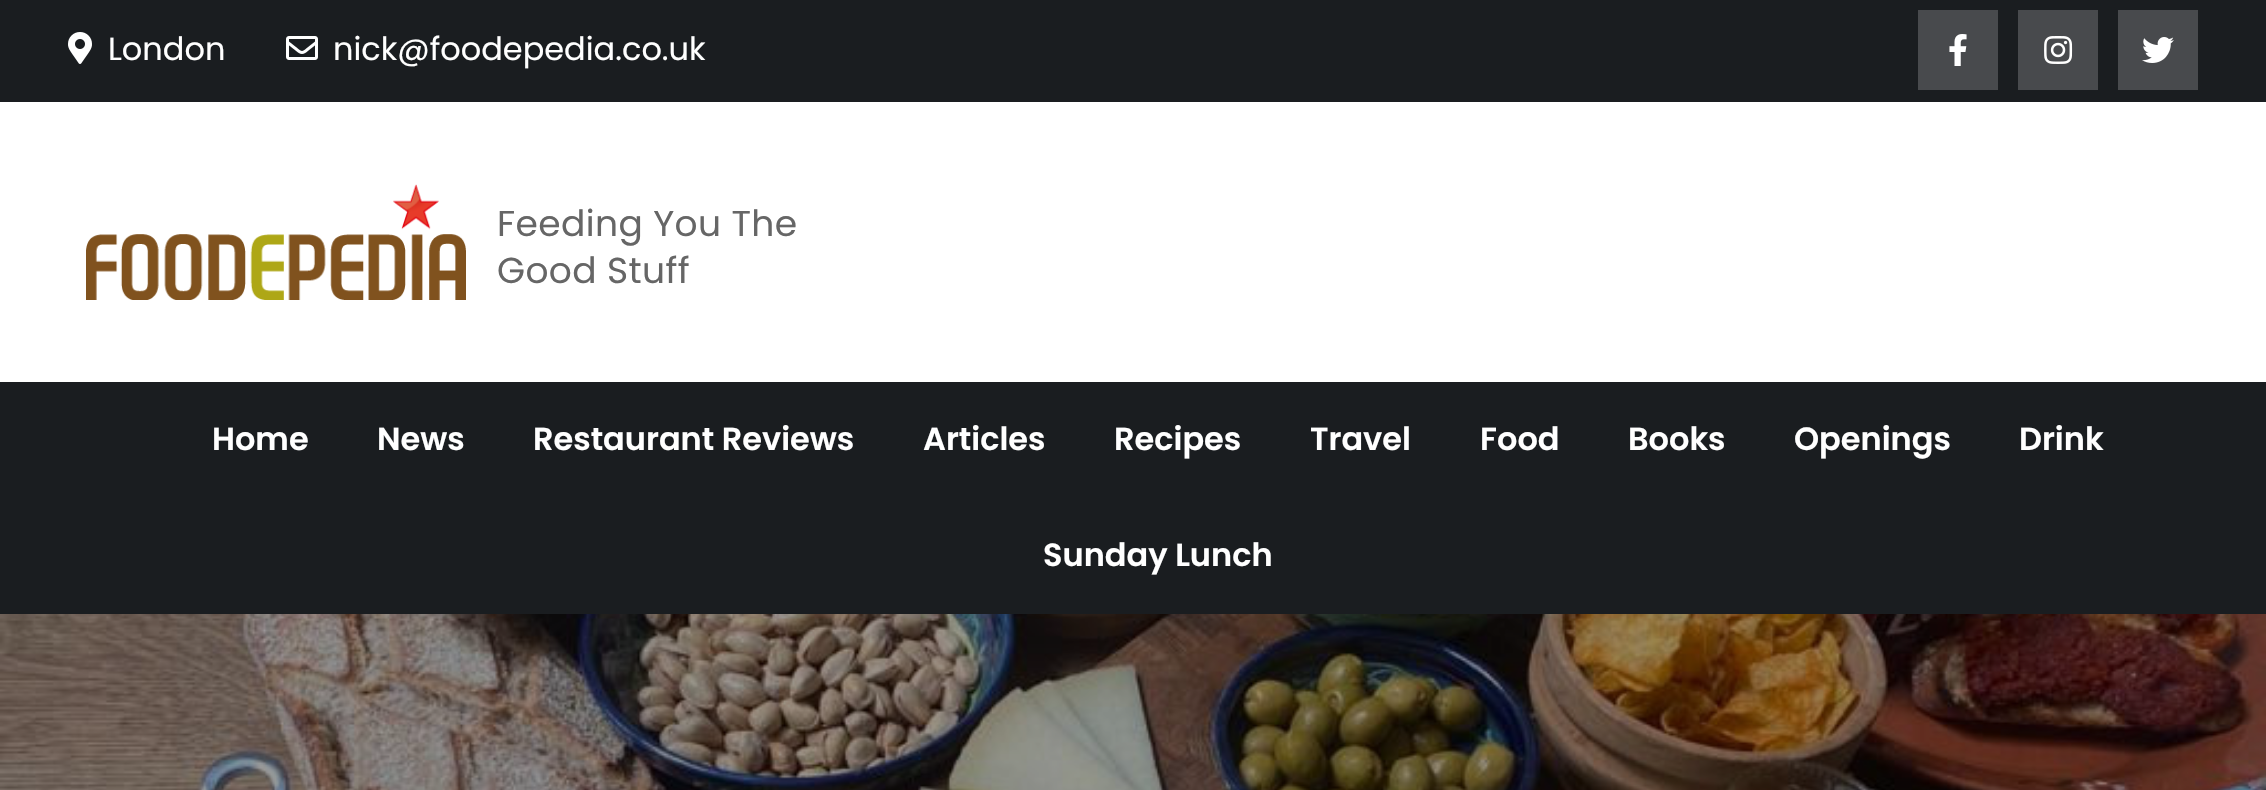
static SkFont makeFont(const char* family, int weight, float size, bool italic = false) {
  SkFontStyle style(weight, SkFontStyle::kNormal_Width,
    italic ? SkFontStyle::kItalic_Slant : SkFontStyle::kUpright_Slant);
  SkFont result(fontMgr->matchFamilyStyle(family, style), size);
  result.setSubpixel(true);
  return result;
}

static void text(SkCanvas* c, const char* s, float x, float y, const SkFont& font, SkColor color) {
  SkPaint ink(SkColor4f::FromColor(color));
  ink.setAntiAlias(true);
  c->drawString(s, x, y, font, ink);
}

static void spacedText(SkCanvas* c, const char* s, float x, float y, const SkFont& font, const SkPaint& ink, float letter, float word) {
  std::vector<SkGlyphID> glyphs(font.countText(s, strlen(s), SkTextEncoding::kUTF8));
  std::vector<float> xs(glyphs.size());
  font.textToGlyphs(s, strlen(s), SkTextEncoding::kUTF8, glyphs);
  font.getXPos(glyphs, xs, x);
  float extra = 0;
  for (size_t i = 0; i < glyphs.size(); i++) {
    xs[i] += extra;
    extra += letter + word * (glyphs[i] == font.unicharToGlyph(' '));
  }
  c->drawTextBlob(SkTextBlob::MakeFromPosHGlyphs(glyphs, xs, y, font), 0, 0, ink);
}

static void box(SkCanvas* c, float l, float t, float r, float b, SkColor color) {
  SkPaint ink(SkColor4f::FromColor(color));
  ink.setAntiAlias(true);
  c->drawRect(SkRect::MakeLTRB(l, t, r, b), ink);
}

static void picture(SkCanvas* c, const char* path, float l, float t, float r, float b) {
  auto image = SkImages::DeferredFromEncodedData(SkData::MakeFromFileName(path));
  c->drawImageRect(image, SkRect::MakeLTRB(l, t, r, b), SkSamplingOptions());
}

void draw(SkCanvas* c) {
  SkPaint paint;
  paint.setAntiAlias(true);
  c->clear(0xffffffff);
  box(c, 0, 0, 2266, 102, 0xff1a1d20);
  picture(c, "img_01.png", 68, 32, 92, 64);
  SkFont face1 = makeFont("Poppins", 400, 32);
  text(c, "London", 108, 60, face1, 0xffffffff);
  picture(c, "img_02.png", 286, 36, 318, 60);
  text(c, "nick@foodepedia.co.uk", 333, 60, face1, 0xffffffff);
  box(c, 1918, 10, 1998, 90, 0xff484a4d);
  picture(c, "img_03.png", 1949, 34, 1967, 66);
  box(c, 2018, 10, 2098, 90, 0xff484a4d);
  picture(c, "img_04.png", 2044, 36, 2073, 64);
  box(c, 2118, 10, 2198, 90, 0xff484a4d);
  picture(c, "img_05.png", 2142, 37, 2174, 63);
  picture(c, "img_06.png", 86, 184, 466, 300);
  SkFont face2 = makeFont("Poppins", 400, 36);
  paint.setColor(0xff666666);
  spacedText(c, "Feeding You The", 497, 236, face2, paint, 0.4f, 0);
  spacedText(c, "Good Stuff", 497, 283, face2, paint, 0.4f, 0);
  box(c, 0, 382, 2266, 614, 0xff1a1d20);
  SkFont face3 = makeFont("Poppins", 600, 32);
  text(c, "Home", 212, 450, face3, 0xffffffff);
  text(c, "News", 377, 450, face3, 0xffffffff);
  text(c, "Restaurant Reviews", 533, 450, face3, 0xffffffff);
  text(c, "Articles", 923, 450, face3, 0xffffffff);
  text(c, "Recipes", 1114, 450, face3, 0xffffffff);
  text(c, "Travel", 1310, 450, face3, 0xffffffff);
  text(c, "Food", 1480, 450, face3, 0xffffffff);
  text(c, "Books", 1628, 450, face3, 0xffffffff);
  text(c, "Openings", 1794, 450, face3, 0xffffffff);
  text(c, "Drink", 2019, 450, face3, 0xffffffff);
  text(c, "Sunday Lunch", 1043, 566, face3, 0xffffffff);
  picture(c, "img_07.png", 0, 614, 2266, 790);
}
